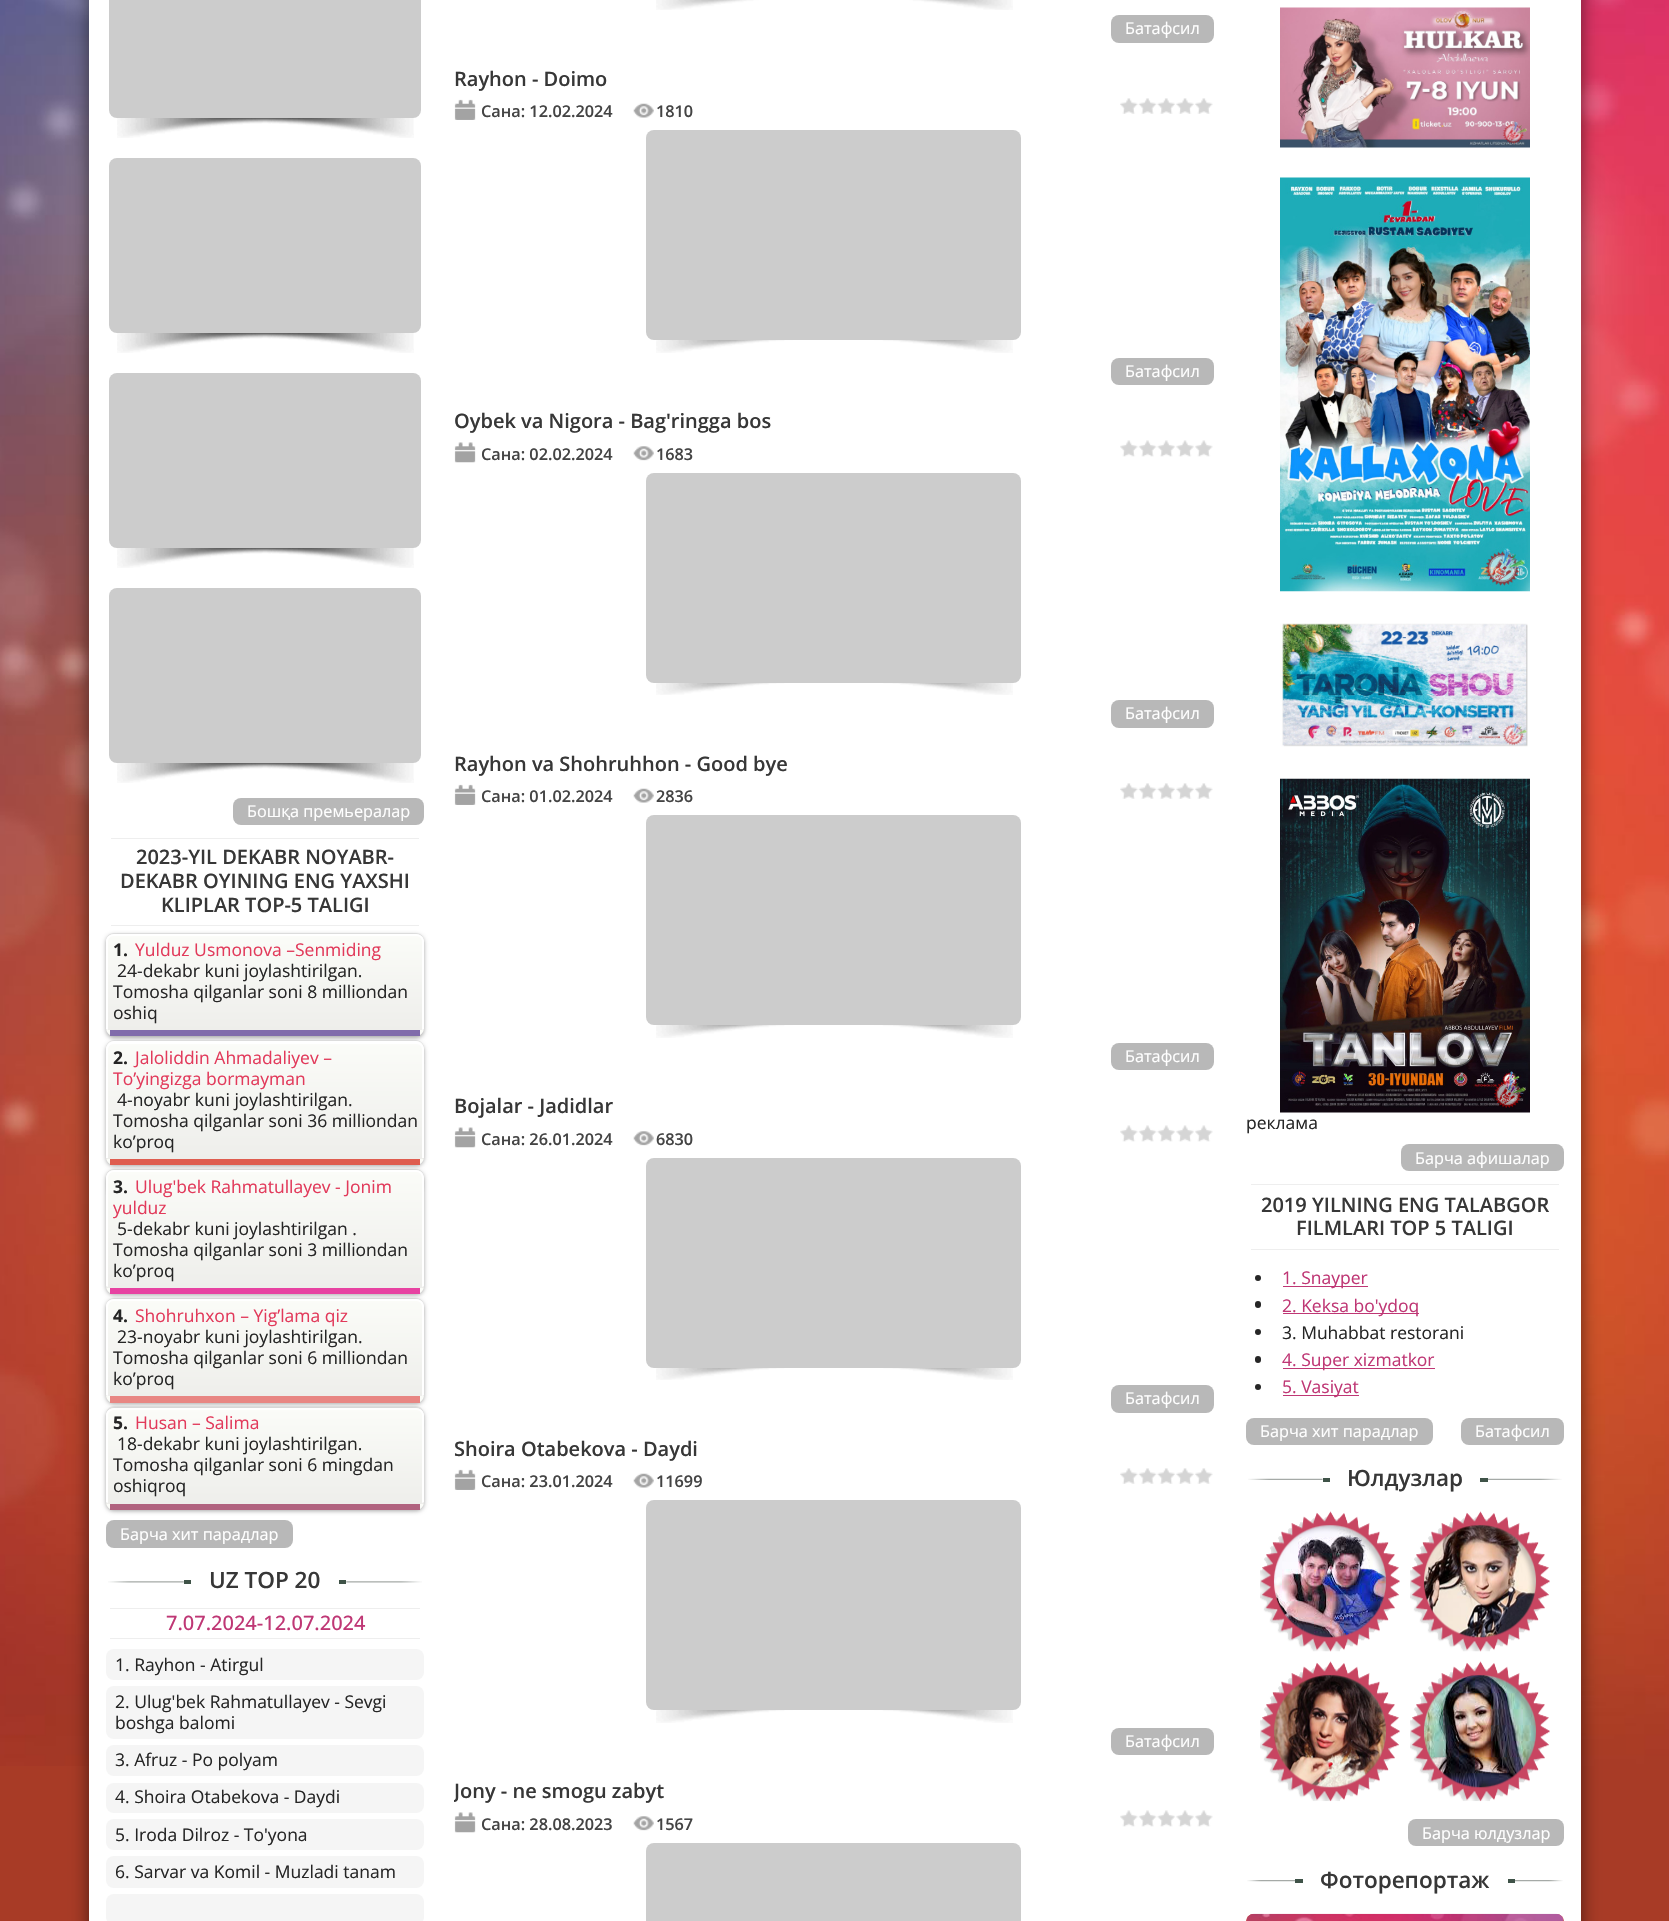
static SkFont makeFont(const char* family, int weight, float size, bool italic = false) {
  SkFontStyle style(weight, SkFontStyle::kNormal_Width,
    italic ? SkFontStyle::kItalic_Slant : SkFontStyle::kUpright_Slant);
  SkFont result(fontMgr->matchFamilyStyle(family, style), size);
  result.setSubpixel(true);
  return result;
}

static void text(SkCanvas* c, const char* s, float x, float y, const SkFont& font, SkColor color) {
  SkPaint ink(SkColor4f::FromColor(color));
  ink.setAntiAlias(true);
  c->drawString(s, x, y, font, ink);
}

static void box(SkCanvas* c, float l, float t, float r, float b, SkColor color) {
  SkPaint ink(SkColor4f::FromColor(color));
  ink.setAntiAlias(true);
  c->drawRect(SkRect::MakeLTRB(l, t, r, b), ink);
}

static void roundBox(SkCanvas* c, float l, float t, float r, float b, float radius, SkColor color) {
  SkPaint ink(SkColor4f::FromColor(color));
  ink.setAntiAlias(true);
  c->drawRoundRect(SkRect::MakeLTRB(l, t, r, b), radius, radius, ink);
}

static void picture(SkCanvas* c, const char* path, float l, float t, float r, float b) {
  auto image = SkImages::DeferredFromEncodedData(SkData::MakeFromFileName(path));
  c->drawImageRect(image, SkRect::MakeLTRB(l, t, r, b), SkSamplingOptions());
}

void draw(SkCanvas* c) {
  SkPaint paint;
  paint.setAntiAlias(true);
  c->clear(0xffa83b26);
  picture(c, "img_01.png", 0, 0, 1669, 1766);
  paint.setColor(0x8a000000);
  paint.setMaskFilter(SkMaskFilter::MakeBlur(kNormal_SkBlurStyle, 9));
  c->drawRoundRect(SkRect::MakeLTRB(89, -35, 1581, 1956), 8, 8, paint);
  paint.setMaskFilter(nullptr);
  box(c, 89, 0, 1581, 1921, 0xffffffff);
  roundBox(c, 109, -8, 421, 118, 8, 0xffcccccc);
  picture(c, "img_02.png", 117, 118, 414, 138);
  roundBox(c, 109, 158, 421, 333, 8, 0xffcccccc);
  picture(c, "img_02.png", 117, 333, 414, 353);
  roundBox(c, 109, 373, 421, 548, 8, 0xffcccccc);
  picture(c, "img_02.png", 117, 548, 414, 568);
  roundBox(c, 109, 588, 421, 763, 8, 0xffcccccc);
  picture(c, "img_02.png", 117, 763, 414, 783);
  roundBox(c, 233, 798, 424, 825, 8, 0xffb8b8b8);
  SkFont face1 = makeFont("Open Sans", 400, 16.25f);
  text(c, "Бошқа премьералар", 247, 817, face1, 0xffffffff);
  box(c, 111, 838, 419, 839, 0xffeeeeee);
  box(c, 111, 925, 419, 926, 0xffeeeeee);
  SkFont face2 = makeFont("Open Sans", 600, 20);
  text(c, "2023-YIL DEKABR NOYABR-", 136, 864, face2, 0xff373737);
  text(c, "DEKABR OYINING ENG YAXSHI", 120, 888, face2, 0xff373737);
  text(c, "KLIPLAR TOP-5 TALIGI", 161, 912, face2, 0xff373737);
  paint.setColor(0x59000000);
  paint.setMaskFilter(SkMaskFilter::MakeBlur(kNormal_SkBlurStyle, 2));
  c->drawRoundRect(SkRect::MakeLTRB(106, 935, 424, 1038), 8, 8, paint);
  paint.setMaskFilter(nullptr);
  paint.setColor(0x0d000000);
  c->drawPath(SkPathBuilder().moveTo(114, 933).cubicTo(103, 933, 106, 950, 106, 955).lineTo(106, 1029).lineTo(106, 956).cubicTo(106, 951, 103, 934, 114, 934).lineTo(416, 934).cubicTo(427, 934, 424, 951, 424, 956).lineTo(424, 1029).lineTo(424, 955).cubicTo(424, 950, 427, 933, 416, 933).close().detach(), paint);
  c->save();
  c->clipPath(SkPathBuilder().moveTo(114, 934).lineTo(416, 934).cubicTo(420.5f, 934, 424, 937.5f, 424, 942).lineTo(424, 1028).cubicTo(424, 1032.5f, 420.5f, 1036, 416, 1036).lineTo(114, 1036).cubicTo(109.5f, 1036, 106, 1032.5f, 106, 1028).lineTo(106, 942).cubicTo(106, 937.5f, 109.5f, 934, 114, 934).close().detach(), true);
  {
    const SkColor colors[] = {0xfffbfcf8, 0xffeeeeeb};
    const float stops[] = {0, 1};
    const SkPoint ends[] = {{265, 934}, {265, 1030}};
    paint.setShader(SkGradientShader::MakeLinear(ends, colors, stops, 2, SkTileMode::kClamp));
    paint.setAlpha(255);
  }
  c->drawPath(SkPathBuilder().moveTo(114, 934).lineTo(416, 934).cubicTo(420.5f, 934, 424, 937.5f, 424, 942).lineTo(424, 1030).lineTo(106, 1030).lineTo(106, 942).cubicTo(106, 937.5f, 109.5f, 934, 114, 934).close().detach(), paint);
  {
    const SkColor colors[] = {0xfffbfcf8, 0xffeeeeeb};
    const float stops[] = {0, 1};
    const SkPoint ends[] = {{265, 1030}, {265, 1126}};
    paint.setShader(SkGradientShader::MakeLinear(ends, colors, stops, 2, SkTileMode::kClamp));
    paint.setAlpha(255);
  }
  c->drawRect(SkRect::MakeLTRB(106, 1030, 424, 1035), paint);
  c->restore();
  paint.setShader(nullptr);
  paint.setColor(0xffffffff);
  c->drawPath(SkPathBuilder().moveTo(114, 936).lineTo(416, 936).cubicTo(420, 936, 422, 939, 422, 942).lineTo(422, 1030).lineTo(424, 1029).lineTo(424, 941).cubicTo(424, 937, 420, 934, 416, 934).lineTo(114, 934).cubicTo(110, 934, 106, 937, 106, 941).lineTo(106, 1029).lineTo(108, 1030).lineTo(108, 942).cubicTo(108, 939, 110, 936, 114, 936).close().detach(), paint);
  box(c, 110, 1030, 420, 1036, 0xff816cab);
  SkFont face3 = makeFont("Open Sans", 700, 17.5f);
  text(c, "1.", 113, 956, face3, 0xff262626);
  SkFont face4 = makeFont("Open Sans", 400, 17.5f);
  text(c, "Yulduz Usmonova –Senmiding", 135, 956, face4, 0xffe23a5b);
  text(c, "24-dekabr kuni joylashtirilgan.", 117, 977, face4, 0xff262626);
  text(c, "Tomosha qilganlar soni 8 milliondan", 113, 998, face4, 0xff262626);
  text(c, "oshiq", 113, 1019, face4, 0xff262626);
  paint.setColor(0x59000000);
  paint.setMaskFilter(SkMaskFilter::MakeBlur(kNormal_SkBlurStyle, 2));
  c->drawRoundRect(SkRect::MakeLTRB(106, 1043, 424, 1166), 8, 8, paint);
  paint.setMaskFilter(nullptr);
  paint.setColor(0x0d000000);
  c->drawPath(SkPathBuilder().moveTo(114, 1040).cubicTo(102, 1040, 106, 1061, 106, 1066).lineTo(106, 1158).lineTo(106, 1067).cubicTo(106, 1062, 102, 1041, 114, 1041).lineTo(416, 1041).cubicTo(428, 1041, 424, 1062, 424, 1067).lineTo(424, 1158).lineTo(424, 1066).cubicTo(424, 1061, 428, 1040, 416, 1040).close().detach(), paint);
  c->save();
  c->clipPath(SkPathBuilder().moveTo(114, 1041).lineTo(416, 1041).cubicTo(420.5f, 1041, 424, 1044.5f, 424, 1049).lineTo(424, 1157).cubicTo(424, 1161.5f, 420.5f, 1165, 416, 1165).lineTo(114, 1165).cubicTo(109.5f, 1165, 106, 1161.5f, 106, 1157).lineTo(106, 1049).cubicTo(106, 1044.5f, 109.5f, 1041, 114, 1041).close().detach(), true);
  {
    const SkColor colors[] = {0xfffbfcf8, 0xffeeeeeb};
    const float stops[] = {0, 1};
    const SkPoint ends[] = {{265, 1041}, {265, 1159}};
    paint.setShader(SkGradientShader::MakeLinear(ends, colors, stops, 2, SkTileMode::kClamp));
    paint.setAlpha(255);
  }
  c->drawPath(SkPathBuilder().moveTo(114, 1041).lineTo(416, 1041).cubicTo(420.5f, 1041, 424, 1044.5f, 424, 1049).lineTo(424, 1159).lineTo(106, 1159).lineTo(106, 1049).cubicTo(106, 1044.5f, 109.5f, 1041, 114, 1041).close().detach(), paint);
  {
    const SkColor colors[] = {0xfffbfcf8, 0xffeeeeeb};
    const float stops[] = {0, 1};
    const SkPoint ends[] = {{265, 1159}, {265, 1276}};
    paint.setShader(SkGradientShader::MakeLinear(ends, colors, stops, 2, SkTileMode::kClamp));
    paint.setAlpha(255);
  }
  c->drawRect(SkRect::MakeLTRB(106, 1159, 424, 1164), paint);
  c->restore();
  paint.setShader(nullptr);
  paint.setColor(0xffffffff);
  c->drawPath(SkPathBuilder().moveTo(114, 1044).lineTo(416, 1044).cubicTo(420, 1044, 422, 1047, 422, 1050).lineTo(422, 1158).lineTo(424, 1158).lineTo(424, 1049).cubicTo(424, 1045, 420, 1041, 416, 1041).lineTo(114, 1041).cubicTo(110, 1041, 106, 1045, 106, 1049).lineTo(106, 1158).lineTo(108, 1158).lineTo(108, 1050).cubicTo(108, 1047, 110, 1044, 114, 1044).close().detach(), paint);
  box(c, 110, 1159, 420, 1165, 0xffdf5d50);
  text(c, "Jaloliddin Ahmadaliyev –", 135, 1064, face4, 0xffe23a5b);
  text(c, "To’yingizga bormayman", 113, 1085, face4, 0xffe23a5b);
  text(c, "2.", 113, 1064, face3, 0xff262626);
  text(c, "4-noyabr kuni joylashtirilgan.", 117, 1106, face4, 0xff262626);
  text(c, "Tomosha qilganlar soni 36 milliondan", 113, 1127, face4, 0xff262626);
  text(c, "ko’proq", 113, 1148, face4, 0xff262626);
  paint.setColor(0x59000000);
  paint.setMaskFilter(SkMaskFilter::MakeBlur(kNormal_SkBlurStyle, 2));
  c->drawRoundRect(SkRect::MakeLTRB(106, 1171, 424, 1295), 8, 8, paint);
  paint.setMaskFilter(nullptr);
  paint.setColor(0x0d000000);
  c->drawPath(SkPathBuilder().moveTo(114, 1169).cubicTo(102, 1169, 106, 1190, 106, 1195).lineTo(106, 1287).lineTo(106, 1178).cubicTo(106, 1173, 110, 1170, 114, 1170).lineTo(416, 1170).cubicTo(420, 1170, 424, 1173, 424, 1178).lineTo(424, 1287).lineTo(424, 1195).cubicTo(424, 1190, 428, 1169, 416, 1169).close().detach(), paint);
  c->save();
  c->clipPath(SkPathBuilder().moveTo(114, 1170).lineTo(416, 1170).cubicTo(420.5f, 1170, 424, 1173.5f, 424, 1178).lineTo(424, 1286).cubicTo(424, 1290.5f, 420.5f, 1294, 416, 1294).lineTo(114, 1294).cubicTo(109.5f, 1294, 106, 1290.5f, 106, 1286).lineTo(106, 1178).cubicTo(106, 1173.5f, 109.5f, 1170, 114, 1170).close().detach(), true);
  {
    const SkColor colors[] = {0xfffbfcf8, 0xffeeeeeb};
    const float stops[] = {0, 1};
    const SkPoint ends[] = {{265, 1170}, {265, 1288}};
    paint.setShader(SkGradientShader::MakeLinear(ends, colors, stops, 2, SkTileMode::kClamp));
    paint.setAlpha(255);
  }
  c->drawPath(SkPathBuilder().moveTo(114, 1170).lineTo(416, 1170).cubicTo(420.5f, 1170, 424, 1173.5f, 424, 1178).lineTo(424, 1288).lineTo(106, 1288).lineTo(106, 1178).cubicTo(106, 1173.5f, 109.5f, 1170, 114, 1170).close().detach(), paint);
  {
    const SkColor colors[] = {0xfffbfcf8, 0xffeeeeeb};
    const float stops[] = {0, 1};
    const SkPoint ends[] = {{265, 1288}, {265, 1405}};
    paint.setShader(SkGradientShader::MakeLinear(ends, colors, stops, 2, SkTileMode::kClamp));
    paint.setAlpha(255);
  }
  c->drawRect(SkRect::MakeLTRB(106, 1288, 424, 1293), paint);
  c->restore();
  paint.setShader(nullptr);
  paint.setColor(0xffffffff);
  c->drawPath(SkPathBuilder().moveTo(114, 1172).lineTo(416, 1172).cubicTo(420, 1172, 422, 1175, 422, 1179).lineTo(422, 1287).lineTo(424, 1286).lineTo(424, 1178).cubicTo(424, 1173, 420, 1170, 416, 1170).lineTo(114, 1170).cubicTo(110, 1170, 106, 1173, 106, 1178).lineTo(106, 1286).lineTo(108, 1287).lineTo(108, 1179).cubicTo(108, 1175, 110, 1172, 114, 1172).close().detach(), paint);
  box(c, 110, 1288, 420, 1294, 0xffe742a1);
  text(c, "Ulug'bek Rahmatullayev - Jonim", 135, 1193, face4, 0xffe23a5b);
  text(c, "yulduz", 113, 1214, face4, 0xffe23a5b);
  text(c, "3.", 113, 1193, face3, 0xff262626);
  text(c, "5-dekabr kuni joylashtirilgan .", 117, 1235, face4, 0xff262626);
  text(c, "Tomosha qilganlar soni 3 milliondan", 113, 1256, face4, 0xff262626);
  text(c, "ko’proq", 113, 1277, face4, 0xff262626);
  paint.setColor(0x59000000);
  paint.setMaskFilter(SkMaskFilter::MakeBlur(kNormal_SkBlurStyle, 2));
  c->drawRoundRect(SkRect::MakeLTRB(106, 1300, 424, 1404), 8, 8, paint);
  paint.setMaskFilter(nullptr);
  paint.setColor(0x0d000000);
  c->drawPath(SkPathBuilder().moveTo(114, 1298).cubicTo(103, 1298, 106, 1315, 106, 1320).lineTo(106, 1395).lineTo(106, 1306).cubicTo(106, 1302, 110, 1299, 114, 1299).lineTo(416, 1299).cubicTo(420, 1299, 424, 1302, 424, 1306).lineTo(424, 1395).lineTo(424, 1320).cubicTo(424, 1315, 427, 1298, 416, 1298).close().detach(), paint);
  c->save();
  c->clipPath(SkPathBuilder().moveTo(114, 1299).lineTo(416, 1299).cubicTo(420.5f, 1299, 424, 1302.5f, 424, 1307).lineTo(424, 1395).cubicTo(424, 1399.5f, 420.5f, 1403, 416, 1403).lineTo(114, 1403).cubicTo(109.5f, 1403, 106, 1399.5f, 106, 1395).lineTo(106, 1307).cubicTo(106, 1302.5f, 109.5f, 1299, 114, 1299).close().detach(), true);
  {
    const SkColor colors[] = {0xfffbfcf8, 0xffeeeeeb};
    const float stops[] = {0, 1};
    const SkPoint ends[] = {{265, 1299}, {265, 1396}};
    paint.setShader(SkGradientShader::MakeLinear(ends, colors, stops, 2, SkTileMode::kClamp));
    paint.setAlpha(255);
  }
  c->drawPath(SkPathBuilder().moveTo(114, 1299).lineTo(416, 1299).cubicTo(420.5f, 1299, 424, 1302.5f, 424, 1307).lineTo(424, 1396).lineTo(106, 1396).lineTo(106, 1307).cubicTo(106, 1302.5f, 109.5f, 1299, 114, 1299).close().detach(), paint);
  {
    const SkColor colors[] = {0xfffbfcf8, 0xffeeeeeb};
    const float stops[] = {0, 1};
    const SkPoint ends[] = {{265, 1396}, {265, 1494}};
    paint.setShader(SkGradientShader::MakeLinear(ends, colors, stops, 2, SkTileMode::kClamp));
    paint.setAlpha(255);
  }
  c->drawRect(SkRect::MakeLTRB(106, 1396, 424, 1402), paint);
  c->restore();
  paint.setShader(nullptr);
  paint.setColor(0xffffffff);
  c->drawPath(SkPathBuilder(SkPathFillType::kEvenOdd).moveTo(114, 1301).lineTo(416, 1301).cubicTo(420, 1301, 422, 1304, 422, 1308).lineTo(422, 1396).lineTo(424, 1395).lineTo(424, 1306).cubicTo(424, 1302, 420, 1299, 416, 1299).lineTo(114, 1299).cubicTo(110, 1299, 106, 1302, 106, 1306).lineTo(106, 1395).lineTo(108, 1396).lineTo(108, 1308).cubicTo(108, 1304, 110, 1301, 114, 1301).close().moveTo(421, 1396).lineTo(109, 1396).close().detach(), paint);
  box(c, 110, 1396, 420, 1403, 0xffe88683);
  text(c, "4.", 113, 1322, face3, 0xff262626);
  text(c, "Shohruhxon – Yig’lama qiz", 135, 1322, face4, 0xffe23a5b);
  text(c, "23-noyabr kuni joylashtirilgan.", 117, 1343, face4, 0xff262626);
  text(c, "Tomosha qilganlar soni 6 milliondan", 113, 1364, face4, 0xff262626);
  text(c, "ko’proq", 113, 1385, face4, 0xff262626);
  paint.setColor(0x59000000);
  paint.setMaskFilter(SkMaskFilter::MakeBlur(kNormal_SkBlurStyle, 2));
  c->drawRoundRect(SkRect::MakeLTRB(106, 1409, 424, 1511), 8, 8, paint);
  paint.setMaskFilter(nullptr);
  paint.setColor(0x0d000000);
  c->drawPath(SkPathBuilder().moveTo(114, 1406).cubicTo(103, 1406, 106, 1423, 106, 1428).lineTo(106, 1503).lineTo(106, 1430).cubicTo(106, 1424, 103, 1408, 114, 1408).lineTo(416, 1408).cubicTo(427, 1408, 424, 1424, 424, 1430).lineTo(424, 1503).lineTo(424, 1428).cubicTo(424, 1423, 427, 1406, 416, 1406).close().detach(), paint);
  c->save();
  c->clipPath(SkPathBuilder().moveTo(114, 1408).lineTo(416, 1408).cubicTo(420.5f, 1408, 424, 1411.5f, 424, 1416).lineTo(424, 1502).cubicTo(424, 1506.5f, 420.5f, 1510, 416, 1510).lineTo(114, 1510).cubicTo(109.5f, 1510, 106, 1506.5f, 106, 1502).lineTo(106, 1416).cubicTo(106, 1411.5f, 109.5f, 1408, 114, 1408).close().detach(), true);
  {
    const SkColor colors[] = {0xfffbfcf8, 0xffeeeeeb};
    const float stops[] = {0, 1};
    const SkPoint ends[] = {{265, 1408}, {265, 1504}};
    paint.setShader(SkGradientShader::MakeLinear(ends, colors, stops, 2, SkTileMode::kClamp));
    paint.setAlpha(255);
  }
  c->drawPath(SkPathBuilder().moveTo(114, 1408).lineTo(416, 1408).cubicTo(420.5f, 1408, 424, 1411.5f, 424, 1416).lineTo(424, 1504).lineTo(106, 1504).lineTo(106, 1416).cubicTo(106, 1411.5f, 109.5f, 1408, 114, 1408).close().detach(), paint);
  {
    const SkColor colors[] = {0xfffbfcf8, 0xffeeeeeb};
    const float stops[] = {0, 1};
    const SkPoint ends[] = {{265, 1504}, {265, 1600}};
    paint.setShader(SkGradientShader::MakeLinear(ends, colors, stops, 2, SkTileMode::kClamp));
    paint.setAlpha(255);
  }
  c->drawRect(SkRect::MakeLTRB(106, 1504, 424, 1509), paint);
  c->restore();
  paint.setShader(nullptr);
  paint.setColor(0xffffffff);
  c->drawPath(SkPathBuilder().moveTo(114, 1410).lineTo(416, 1410).cubicTo(420, 1410, 422, 1413, 422, 1416).lineTo(422, 1503).lineTo(424, 1502).lineTo(424, 1415).cubicTo(424, 1411, 420, 1408, 416, 1408).lineTo(114, 1408).cubicTo(110, 1408, 106, 1411, 106, 1415).lineTo(106, 1502).lineTo(108, 1503).lineTo(108, 1416).cubicTo(108, 1413, 110, 1410, 114, 1410).close().detach(), paint);
  box(c, 110, 1504, 420, 1510, 0xffb1637f);
  text(c, "5.", 113, 1429, face3, 0xff262626);
  text(c, "Husan – Salima", 135, 1429, face4, 0xffe23a5b);
  text(c, "18-dekabr kuni joylashtirilgan.", 117, 1450, face4, 0xff262626);
  text(c, "Tomosha qilganlar soni 6 mingdan", 113, 1471, face4, 0xff262626);
  text(c, "oshiqroq", 113, 1492, face4, 0xff262626);
  roundBox(c, 106, 1520, 293, 1548, 8, 0xffb8b8b8);
  text(c, "Барча хит парадлар", 120, 1540, face1, 0xffffffff);
  picture(c, "img_03.png", 108, 1581, 184, 1583);
  box(c, 184, 1580, 191, 1584, 0xff3f5348);
  SkFont face5 = makeFont("Open Sans", 600, 22.5f);
  text(c, "UZ TOP 20", 209, 1588, face5, 0xff373737);
  box(c, 339, 1580, 346, 1584, 0xff3f5348);
  picture(c, "img_04.png", 346, 1581, 422, 1583);
  box(c, 110, 1608, 420, 1609, 0xffeeeeee);
  box(c, 110, 1638, 420, 1639, 0xffeeeeee);
  SkFont face6 = makeFont("Open Sans", 500, 20);
  text(c, "7.07.2024-12.07.2024", 166, 1630, face6, 0xffbf3775);
  roundBox(c, 106, 1649, 424, 1680, 8, 0xfff5f5f5);
  text(c, "1. Rayhon - Atirgul", 115, 1671, face4, 0xff262626);
  roundBox(c, 106, 1686, 424, 1739, 8, 0xfff5f5f5);
  text(c, "2. Ulug'bek Rahmatullayev - Sevgi", 115, 1708, face4, 0xff262626);
  text(c, "boshga balomi", 115, 1729, face4, 0xff262626);
  roundBox(c, 106, 1745, 424, 1776, 8, 0xfff5f5f5);
  text(c, "3. Afruz - Po polyam", 115, 1766, face4, 0xff262626);
  roundBox(c, 106, 1783, 424, 1813, 8, 0xfff5f5f5);
  text(c, "4. Shoira Otabekova - Daydi", 115, 1803, face4, 0xff262626);
  roundBox(c, 106, 1819, 424, 1850, 8, 0xfff5f5f5);
  text(c, "5. Iroda Dilroz - To'yona", 115, 1841, face4, 0xff262626);
  roundBox(c, 106, 1856, 424, 1888, 8, 0xfff5f5f5);
  text(c, "6. Sarvar va Komil - Muzladi tanam", 115, 1878, face4, 0xff262626);
  roundBox(c, 106, 1894, 424, 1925, 8, 0xfff5f5f5);
  picture(c, "img_05.png", 656, 0, 1013, 10);
  roundBox(c, 1111, 15, 1214, 43, 8, 0xffb8b8b8);
  text(c, "Батафсил", 1125, 34, face1, 0xffffffff);
  text(c, "Rayhon - Doimo", 454, 86, face2, 0xff373737);
  picture(c, "img_06.png", 454, 99, 476, 120);
  SkFont face7 = makeFont("Open Sans", 600, 16.25f);
  text(c, "Сана: 12.02.2024", 481, 117, face7, 0xff444444);
  picture(c, "img_07.png", 633, 103, 654, 118);
  text(c, "1810", 656, 117, face7, 0xff444444);
  picture(c, "img_08.png", 1120, 98, 1213, 114);
  roundBox(c, 646, 130, 1021, 340, 8, 0xffcccccc);
  picture(c, "img_09.png", 656, 340, 1013, 353);
  roundBox(c, 1111, 358, 1214, 385, 8, 0xffb8b8b8);
  text(c, "Батафсил", 1125, 377, face1, 0xffffffff);
  text(c, "Oybek va Nigora - Bag'ringga bos", 454, 428, face2, 0xff373737);
  picture(c, "img_10.png", 454, 442, 476, 463);
  text(c, "Сана: 02.02.2024", 481, 460, face7, 0xff444444);
  picture(c, "img_11.png", 633, 446, 654, 461);
  text(c, "1683", 656, 460, face7, 0xff444444);
  picture(c, "img_12.png", 1120, 440, 1213, 457);
  roundBox(c, 646, 473, 1021, 683, 8, 0xffcccccc);
  picture(c, "img_13.png", 656, 683, 1013, 695);
  roundBox(c, 1111, 700, 1214, 728, 8, 0xffb8b8b8);
  text(c, "Батафсил", 1125, 719, face1, 0xffffffff);
  text(c, "Rayhon va Shohruhhon - Good bye", 454, 771, face2, 0xff373737);
  picture(c, "img_14.png", 454, 784, 476, 805);
  text(c, "Сана: 01.02.2024", 481, 802, face7, 0xff444444);
  picture(c, "img_07.png", 633, 788, 654, 803);
  text(c, "2836", 656, 802, face7, 0xff444444);
  picture(c, "img_15.png", 1120, 783, 1213, 799);
  roundBox(c, 646, 815, 1021, 1025, 8, 0xffcccccc);
  picture(c, "img_09.png", 656, 1025, 1013, 1038);
  roundBox(c, 1111, 1043, 1214, 1070, 8, 0xffb8b8b8);
  text(c, "Батафсил", 1125, 1062, face1, 0xffffffff);
  text(c, "Bojalar - Jadidlar", 454, 1113, face2, 0xff373737);
  picture(c, "img_16.png", 454, 1127, 476, 1148);
  text(c, "Сана: 26.01.2024", 481, 1145, face7, 0xff444444);
  picture(c, "img_11.png", 633, 1131, 654, 1146);
  text(c, "6830", 656, 1145, face7, 0xff444444);
  picture(c, "img_17.png", 1120, 1125, 1213, 1142);
  roundBox(c, 646, 1158, 1021, 1368, 8, 0xffcccccc);
  picture(c, "img_13.png", 656, 1368, 1013, 1380);
  roundBox(c, 1111, 1385, 1214, 1413, 8, 0xffb8b8b8);
  text(c, "Батафсил", 1125, 1404, face1, 0xffffffff);
  text(c, "Shoira Otabekova - Daydi", 454, 1456, face2, 0xff373737);
  picture(c, "img_14.png", 454, 1469, 476, 1490);
  text(c, "Сана: 23.01.2024", 481, 1487, face7, 0xff444444);
  picture(c, "img_07.png", 633, 1473, 654, 1488);
  text(c, "11699", 656, 1487, face7, 0xff444444);
  picture(c, "img_15.png", 1120, 1468, 1213, 1484);
  roundBox(c, 646, 1500, 1021, 1710, 8, 0xffcccccc);
  picture(c, "img_09.png", 656, 1710, 1013, 1723);
  roundBox(c, 1111, 1728, 1214, 1755, 8, 0xffb8b8b8);
  text(c, "Батафсил", 1125, 1747, face1, 0xffffffff);
  c->save();
  c->clipRect(SkRect::MakeLTRB(454, 1780, 1214, 1805));
  text(c, "Jony - ne smogu zabyt", 454, 1798, face2, 0xff373737);
  c->restore();
  picture(c, "img_10.png", 454, 1812, 476, 1833);
  text(c, "Сана: 28.08.2023", 481, 1830, face7, 0xff444444);
  picture(c, "img_11.png", 633, 1816, 654, 1831);
  text(c, "1567", 656, 1830, face7, 0xff444444);
  picture(c, "img_12.png", 1120, 1810, 1213, 1827);
  roundBox(c, 646, 1843, 1021, 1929, 8, 0xffcccccc);
  picture(c, "img_18.png", 1280, 7, 1530, 148);
  picture(c, "img_19.png", 1280, 177, 1530, 592);
  picture(c, "img_20.png", 1280, 623, 1528, 747);
  picture(c, "img_21.png", 1280, 778, 1530, 1113);
  text(c, "реклама", 1246, 1129, face4, 0xff262626);
  roundBox(c, 1401, 1144, 1564, 1171, 8, 0xffb8b8b8);
  text(c, "Барча афишалар", 1415, 1164, face1, 0xffffffff);
  box(c, 1251, 1184, 1559, 1185, 0xffeeeeee);
  box(c, 1251, 1249, 1559, 1250, 0xffeeeeee);
  text(c, "2019 YILNING ENG TALABGOR", 1261, 1212, face2, 0xff373737);
  text(c, "FILMLARI TOP 5 TALIGI", 1296, 1235, face2, 0xff373737);
  paint.setColor(0xff262626);
  c->drawCircle(1258, 1278, 3, paint);
  box(c, 1283, 1286, 1368, 1287, 0xffbf3775);
  text(c, "1. Snayper", 1282, 1284, face4, 0xffbf3775);
  roundBox(c, 1255, 1301, 1261, 1308, 3, 0xff262626);
  box(c, 1283, 1313, 1419, 1314, 0xffbf3775);
  text(c, "2. Keksa bo'ydoq", 1282, 1312, face4, 0xffbf3775);
  c->drawCircle(1258, 1332, 3, paint);
  text(c, "3. Muhabbat restorani", 1282, 1339, face4, 0xff262626);
  roundBox(c, 1255, 1356, 1261, 1363, 3, 0xff262626);
  box(c, 1283, 1368, 1435, 1369, 0xffbf3775);
  text(c, "4. Super xizmatkor", 1282, 1366, face4, 0xffbf3775);
  c->drawCircle(1258, 1387, 3, paint);
  box(c, 1283, 1395, 1359, 1396, 0xffbf3775);
  text(c, "5. Vasiyat", 1282, 1393, face4, 0xffbf3775);
  roundBox(c, 1246, 1418, 1433, 1445, 8, 0xffb8b8b8);
  text(c, "Барча хит парадлар", 1260, 1437, face1, 0xffffffff);
  roundBox(c, 1461, 1418, 1564, 1445, 8, 0xffb8b8b8);
  text(c, "Батафсил", 1475, 1437, face1, 0xffffffff);
  picture(c, "img_22.png", 1248, 1478, 1323, 1480);
  box(c, 1323, 1478, 1330, 1482, 0xff3f5348);
  text(c, "Юлдузлар", 1347, 1486, face5, 0xff373737);
  box(c, 1480, 1478, 1488, 1482, 0xff3f5348);
  picture(c, "img_23.png", 1488, 1478, 1562, 1480);
  picture(c, "img_24.png", 1260, 1511, 1400, 1652);
  picture(c, "img_25.png", 1410, 1511, 1550, 1652);
  picture(c, "img_26.png", 1260, 1661, 1400, 1802);
  picture(c, "img_27.png", 1410, 1661, 1550, 1802);
  roundBox(c, 1408, 1819, 1564, 1846, 8, 0xffb8b8b8);
  text(c, "Барча юлдузлар", 1422, 1839, face1, 0xffffffff);
  picture(c, "img_28.png", 1247, 1880, 1295, 1882);
  box(c, 1295, 1879, 1303, 1883, 0xff3f5348);
  text(c, "Фоторепортаж", 1320, 1888, face5, 0xff373737);
  box(c, 1508, 1879, 1515, 1883, 0xff3f5348);
  picture(c, "img_29.png", 1515, 1880, 1563, 1882);
  roundBox(c, 1246, 1914, 1564, 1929, 8, 0xffdf553e);
  picture(c, "img_30.png", 1246, 1913, 1564, 1921);
}
